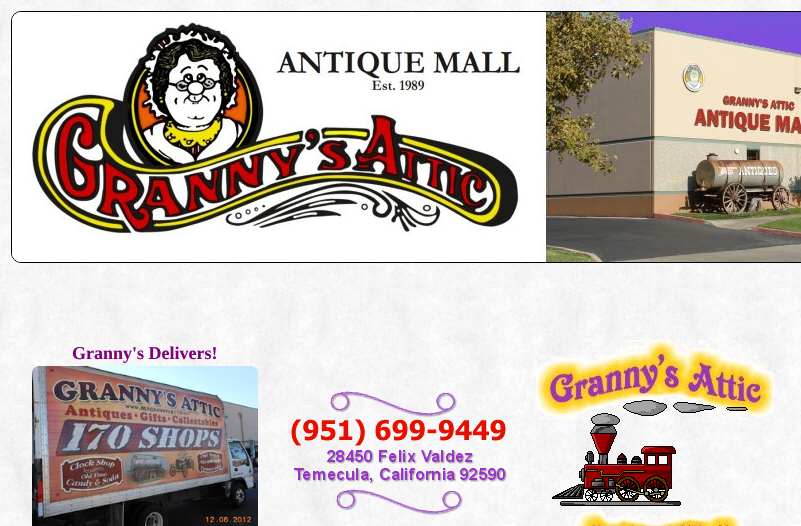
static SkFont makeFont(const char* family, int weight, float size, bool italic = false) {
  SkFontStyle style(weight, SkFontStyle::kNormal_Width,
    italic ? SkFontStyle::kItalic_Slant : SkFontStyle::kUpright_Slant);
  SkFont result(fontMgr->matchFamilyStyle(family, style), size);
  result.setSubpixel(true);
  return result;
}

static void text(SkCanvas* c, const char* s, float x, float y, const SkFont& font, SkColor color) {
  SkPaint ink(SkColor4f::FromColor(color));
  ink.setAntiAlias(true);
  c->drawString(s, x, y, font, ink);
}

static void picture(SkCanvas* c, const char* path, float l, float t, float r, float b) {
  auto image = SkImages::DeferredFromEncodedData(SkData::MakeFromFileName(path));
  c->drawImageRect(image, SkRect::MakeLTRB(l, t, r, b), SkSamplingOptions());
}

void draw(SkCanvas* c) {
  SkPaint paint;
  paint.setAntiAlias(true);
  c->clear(0xffffffff);
  picture(c, "img_01.png", 0, 0, 801, 526);
  paint.setStyle(SkPaint::kStroke_Style);
  paint.setStrokeWidth(1);
  paint.setColor(0xff000000);
  c->drawRoundRect(SkRect::MakeLTRB(11.5f, 11.5f, 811.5f, 262.5f), 9.5f, 9.5f, paint);
  picture(c, "img_02.png", 12, 12, 801, 262);
  SkFont face1 = makeFont("Liberation Serif", 700, 18);
  text(c, "Granny's Delivers!", 72, 359, face1, 0xff800080);
  picture(c, "img_03.png", 32, 366, 258, 526);
  picture(c, "img_04.png", 534, 340, 778, 526);
  picture(c, "img_05.png", 291, 391, 507, 515);
}
